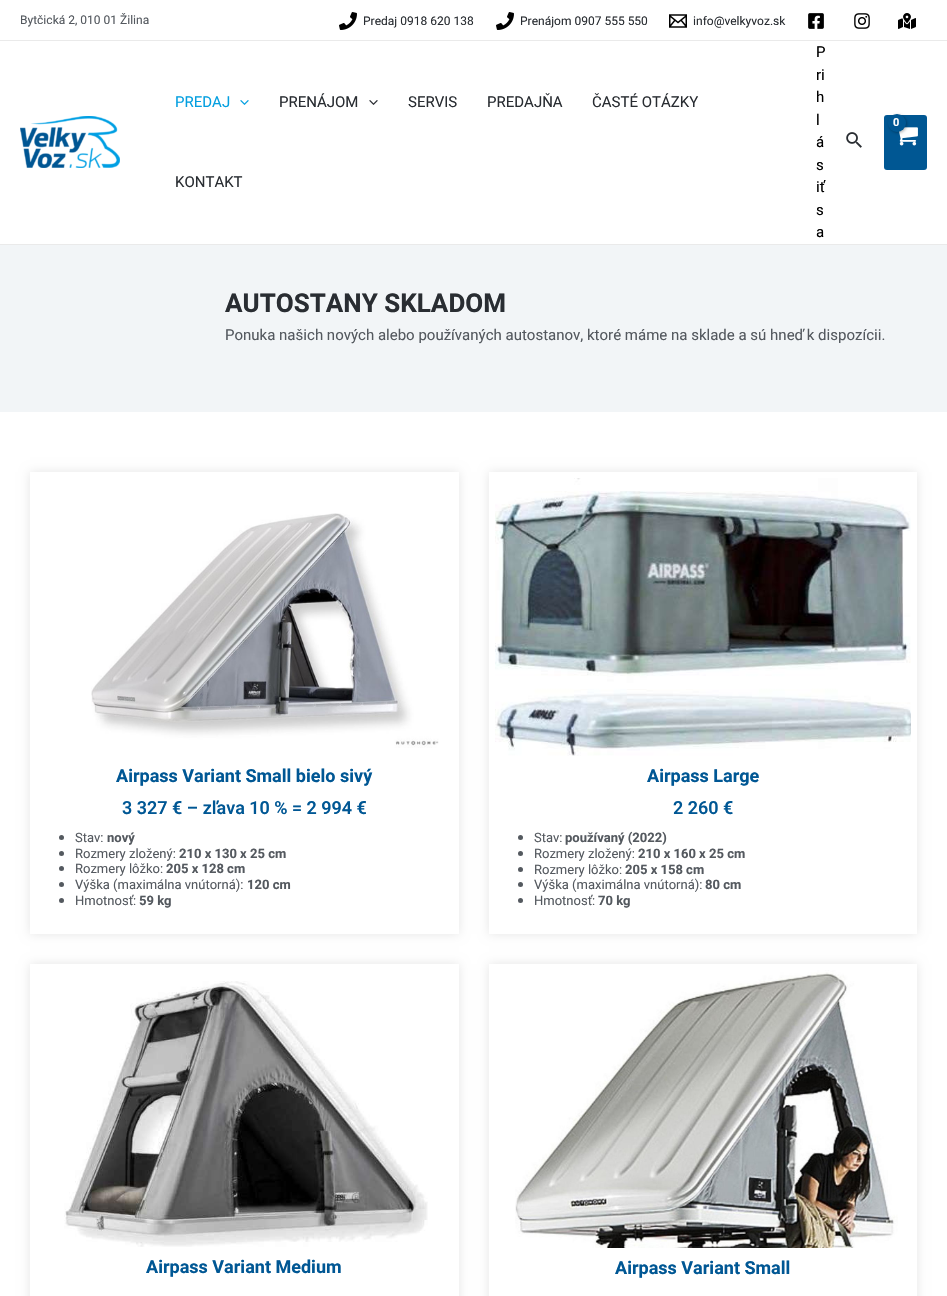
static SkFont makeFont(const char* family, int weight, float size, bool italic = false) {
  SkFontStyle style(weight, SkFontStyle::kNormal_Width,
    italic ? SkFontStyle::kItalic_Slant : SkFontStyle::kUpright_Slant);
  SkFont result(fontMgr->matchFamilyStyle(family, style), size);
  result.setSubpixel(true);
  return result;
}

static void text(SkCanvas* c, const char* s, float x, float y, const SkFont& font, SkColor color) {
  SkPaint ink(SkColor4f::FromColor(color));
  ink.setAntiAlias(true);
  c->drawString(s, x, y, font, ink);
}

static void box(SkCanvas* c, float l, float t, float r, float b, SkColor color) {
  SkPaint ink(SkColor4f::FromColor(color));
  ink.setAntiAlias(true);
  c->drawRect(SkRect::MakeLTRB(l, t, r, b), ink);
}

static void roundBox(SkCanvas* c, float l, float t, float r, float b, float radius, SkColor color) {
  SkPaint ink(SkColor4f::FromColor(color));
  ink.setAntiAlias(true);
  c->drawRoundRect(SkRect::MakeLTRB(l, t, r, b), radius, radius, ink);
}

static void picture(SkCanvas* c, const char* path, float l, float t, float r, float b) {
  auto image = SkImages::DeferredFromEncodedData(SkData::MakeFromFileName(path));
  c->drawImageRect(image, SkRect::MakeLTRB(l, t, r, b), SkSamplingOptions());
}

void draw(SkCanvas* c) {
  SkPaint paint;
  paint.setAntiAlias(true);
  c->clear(0xffffffff);
  box(c, 0, 40, 947, 41, 0xffeaeaea);
  SkFont face1 = makeFont("Heebo", 400, 12);
  text(c, "Bytčická 2, 010 01 Žilina", 20, 24, face1, 0xff54595f);
  picture(c, "img_01.png", 339, 12, 357, 30);
  text(c, "Predaj 0918 620 138", 363, 25, face1, 0xff292d32);
  picture(c, "img_01.png", 496, 12, 514, 30);
  text(c, "Prenájom 0907 555 550", 520, 25, face1, 0xff292d32);
  picture(c, "img_02.png", 669, 14, 687, 28);
  text(c, "info@velkyvoz.sk", 693, 25, face1, 0xff292d32);
  picture(c, "img_03.png", 808, 13, 824, 29);
  picture(c, "img_04.png", 854, 13, 870, 29);
  picture(c, "img_05.png", 898, 13, 916, 29);
  box(c, 0, 244, 947, 245, 0xffeaeaea);
  picture(c, "img_06.png", 20, 116, 120, 168);
  SkFont face2 = makeFont("Heebo", 400, 15);
  text(c, "PREDAJ", 175, 107, face2, 0xff039fe0);
  picture(c, "img_07.png", 240, 100, 249, 105);
  text(c, "PRENÁJOM", 279, 107, face2, 0xff292d32);
  picture(c, "img_08.png", 369, 100, 378, 105);
  text(c, "SERVIS", 408, 107, face2, 0xff292d32);
  text(c, "PREDAJŇA", 487, 107, face2, 0xff292d32);
  text(c, "ČASTÉ OTÁZKY", 592, 107, face2, 0xff292d32);
  text(c, "KONTAKT", 175, 187, face2, 0xff292d32);
  text(c, "P", 816, 57, face2, 0xff000000);
  text(c, "ri", 816, 80, face2, 0xff000000);
  text(c, "h", 816, 102, face2, 0xff000000);
  text(c, "l", 816, 125, face2, 0xff000000);
  text(c, "á", 816, 147, face2, 0xff000000);
  text(c, "s", 816, 170, face2, 0xff000000);
  text(c, "iť", 816, 192, face2, 0xff000000);
  text(c, "s", 816, 215, face2, 0xff000000);
  text(c, "a", 816, 237, face2, 0xff000000);
  roundBox(c, 884, 115, 927, 170, 3, 0xff005793);
  picture(c, "img_09.png", 899, 127, 918, 146);
  paint.setColor(0x4d000000);
  paint.setMaskFilter(SkMaskFilter::MakeBlur(kNormal_SkBlurStyle, 1.5f));
  c->drawRoundRect(SkRect::MakeLTRB(889, 115, 907, 133), 9, 9, paint);
  paint.setMaskFilter(nullptr);
  paint.setColor(0xff005793);
  c->drawCircle(897, 123, 9, paint);
  SkFont face3 = makeFont("Roboto", 700, 11);
  text(c, "0", 893, 126, face3, 0xffffffff);
  picture(c, "img_10.png", 846, 132, 862, 148);
  box(c, 0, 245, 947, 412, 0xfff2f5f7);
  SkFont face4 = makeFont("Heebo", 700, 26);
  text(c, "AUTOSTANY SKLADOM", 225, 312, face4, 0xff292d32);
  text(c, "Ponuka našich nových alebo používaných autostanov, ktoré máme na sklade a sú hneď k dispozícii.", 225, 340, face2, 0xff54595f);
  c->save();
  c->clipPath(SkPathBuilder(SkPathFillType::kEvenOdd).moveTo(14, 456).lineTo(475, 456).lineTo(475, 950).lineTo(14, 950).close().moveTo(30, 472).lineTo(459, 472).lineTo(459, 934).lineTo(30, 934).close().detach(), true);
  paint.setColor(0x1a000000);
  paint.setMaskFilter(SkMaskFilter::MakeBlur(kNormal_SkBlurStyle, 5));
  c->drawRect(SkRect::MakeLTRB(30, 472, 459, 934), paint);
  paint.setMaskFilter(nullptr);
  c->restore();
  picture(c, "img_11.png", 91, 513, 439, 748);
  SkFont face5 = makeFont("Heebo", 700, 18);
  text(c, "Airpass Variant Small bielo sivý", 116, 782, face5, 0xff005794);
  SkFont face6 = makeFont("Heebo", 600, 18);
  text(c, "3 327 € – zľava 10 % = 2 994 €", 122, 814, face6, 0xff005794);
  paint.setColor(0xff54595f);
  c->drawCircle(61.5f, 837.5f, 2.5f, paint);
  SkFont face7 = makeFont("Heebo", 400, 13);
  text(c, "Stav:", 75, 842, face7, 0xff54595f);
  SkFont face8 = makeFont("Heebo", 700, 13);
  text(c, "nový", 107, 842, face8, 0xff54595f);
  c->drawCircle(61.5f, 853.5f, 2.5f, paint);
  text(c, "Rozmery zložený:", 75, 858, face7, 0xff54595f);
  text(c, "210 x 130 x 25 cm", 179, 858, face8, 0xff54595f);
  c->drawCircle(61.5f, 868.5f, 2.5f, paint);
  text(c, "Rozmery lôžko:", 75, 873, face7, 0xff54595f);
  text(c, "205 x 128 cm", 166, 873, face8, 0xff54595f);
  c->drawCircle(61.5f, 884.5f, 2.5f, paint);
  text(c, "Výška (maximálna vnútorná):", 75, 889, face7, 0xff54595f);
  text(c, "120 cm", 247, 889, face8, 0xff54595f);
  c->drawCircle(61.5f, 900.5f, 2.5f, paint);
  text(c, "Hmotnosť:", 75, 905, face7, 0xff54595f);
  text(c, "59 kg", 139, 905, face8, 0xff54595f);
  c->save();
  c->clipPath(SkPathBuilder(SkPathFillType::kEvenOdd).moveTo(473, 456).lineTo(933, 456).lineTo(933, 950).lineTo(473, 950).close().moveTo(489, 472).lineTo(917, 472).lineTo(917, 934).lineTo(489, 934).close().detach(), true);
  paint.setColor(0x1a000000);
  paint.setMaskFilter(SkMaskFilter::MakeBlur(kNormal_SkBlurStyle, 5));
  c->drawRect(SkRect::MakeLTRB(489, 472, 917, 934), paint);
  paint.setMaskFilter(nullptr);
  c->restore();
  picture(c, "img_12.png", 495, 478, 911, 756);
  text(c, "Airpass Large", 647, 782, face5, 0xff005794);
  text(c, "2 260 €", 673, 814, face6, 0xff005794);
  paint.setColor(0xff54595f);
  c->drawCircle(520.5f, 837.5f, 2.5f, paint);
  text(c, "Stav:", 534, 842, face7, 0xff54595f);
  text(c, "používaný (2022)", 565, 842, face8, 0xff54595f);
  c->drawCircle(520.5f, 853.5f, 2.5f, paint);
  text(c, "Rozmery zložený:", 534, 858, face7, 0xff54595f);
  text(c, "210 x 160 x 25 cm", 638, 858, face8, 0xff54595f);
  c->drawCircle(520.5f, 869.5f, 2.5f, paint);
  text(c, "Rozmery lôžko:", 534, 874, face7, 0xff54595f);
  text(c, "205 x 158 cm", 625, 874, face8, 0xff54595f);
  c->drawCircle(520.5f, 884.5f, 2.5f, paint);
  text(c, "Výška (maximálna vnútorná):", 534, 889, face7, 0xff54595f);
  text(c, "80 cm", 705, 889, face8, 0xff54595f);
  c->drawCircle(520.5f, 900.5f, 2.5f, paint);
  text(c, "Hmotnosť:", 534, 905, face7, 0xff54595f);
  text(c, "70 kg", 598, 905, face8, 0xff54595f);
  c->save();
  c->clipPath(SkPathBuilder(SkPathFillType::kEvenOdd).moveTo(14, 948).lineTo(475, 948).lineTo(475, 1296).lineTo(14, 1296).close().moveTo(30, 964).lineTo(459, 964).lineTo(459, 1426).lineTo(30, 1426).close().detach(), true);
  paint.setColor(0x1a000000);
  paint.setMaskFilter(SkMaskFilter::MakeBlur(kNormal_SkBlurStyle, 5));
  c->drawRect(SkRect::MakeLTRB(30, 964, 459, 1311), paint);
  paint.setMaskFilter(nullptr);
  c->restore();
  picture(c, "img_13.png", 64, 981, 428, 1247);
  text(c, "Airpass Variant Medium", 146, 1273, face5, 0xff005794);
  c->save();
  c->clipPath(SkPathBuilder(SkPathFillType::kEvenOdd).moveTo(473, 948).lineTo(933, 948).lineTo(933, 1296).lineTo(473, 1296).close().moveTo(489, 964).lineTo(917, 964).lineTo(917, 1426).lineTo(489, 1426).close().detach(), true);
  paint.setMaskFilter(SkMaskFilter::MakeBlur(kNormal_SkBlurStyle, 5));
  c->drawRect(SkRect::MakeLTRB(489, 964, 917, 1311), paint);
  paint.setMaskFilter(nullptr);
  c->restore();
  picture(c, "img_14.png", 515, 970, 898, 1248);
  text(c, "Airpass Variant Small", 615, 1274, face5, 0xff005794);
}
